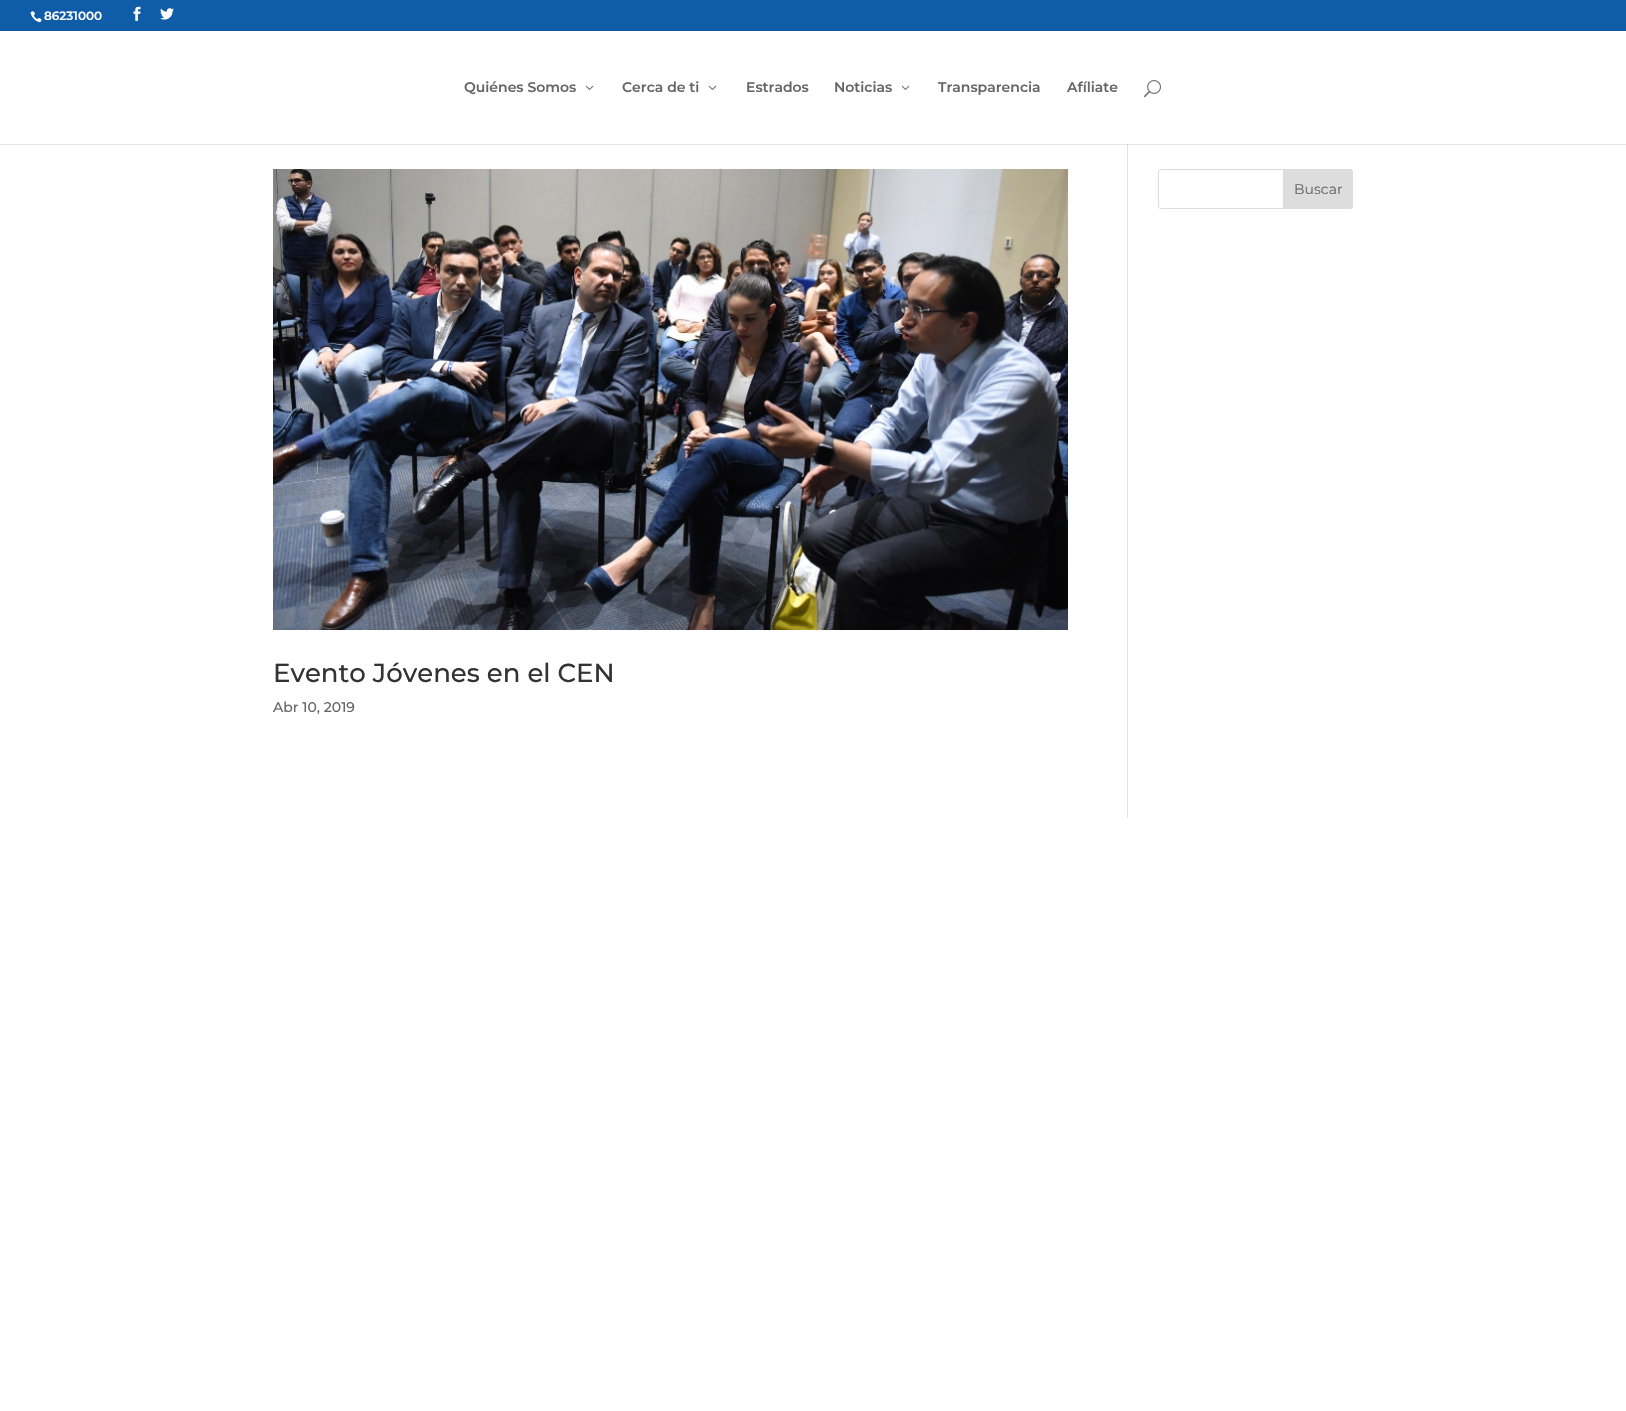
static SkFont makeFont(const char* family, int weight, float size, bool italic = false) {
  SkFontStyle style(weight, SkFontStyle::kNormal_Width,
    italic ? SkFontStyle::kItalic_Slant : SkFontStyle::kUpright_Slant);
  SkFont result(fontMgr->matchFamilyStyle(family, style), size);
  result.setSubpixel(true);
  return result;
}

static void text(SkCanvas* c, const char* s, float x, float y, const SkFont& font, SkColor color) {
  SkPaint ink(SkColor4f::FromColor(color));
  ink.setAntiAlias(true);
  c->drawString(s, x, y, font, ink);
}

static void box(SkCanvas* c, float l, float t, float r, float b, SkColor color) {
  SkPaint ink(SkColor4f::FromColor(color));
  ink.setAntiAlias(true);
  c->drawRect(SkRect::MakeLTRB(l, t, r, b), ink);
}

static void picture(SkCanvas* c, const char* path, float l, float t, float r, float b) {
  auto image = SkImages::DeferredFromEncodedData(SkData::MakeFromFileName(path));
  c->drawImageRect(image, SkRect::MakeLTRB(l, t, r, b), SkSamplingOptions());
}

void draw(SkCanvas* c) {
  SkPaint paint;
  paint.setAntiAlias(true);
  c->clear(0xffffffff);
  box(c, 0, 144, 1626, 145, 0xffe6e6e6);
  box(c, 0, 0, 1626, 31, 0xff0f5ca8);
  picture(c, "img_01.png", 30, 11, 42, 23);
  SkFont face1 = makeFont("Montserrat", 600, 12);
  text(c, "86231000", 44, 20, face1, 0xffffffff);
  picture(c, "img_02.png", 133, 6, 141, 21);
  picture(c, "img_03.png", 160, 8, 174, 20);
  SkFont face2 = makeFont("Montserrat", 600, 14);
  text(c, "Quiénes Somos", 464, 92, face2, 0xff666666);
  picture(c, "img_04.png", 585, 85, 594, 90);
  text(c, "Cerca de ti", 622, 92, face2, 0xff666666);
  picture(c, "img_04.png", 708, 85, 717, 90);
  text(c, "Estrados", 746, 92, face2, 0xff666666);
  text(c, "Noticias", 834, 92, face2, 0xff666666);
  picture(c, "img_04.png", 901, 85, 910, 90);
  text(c, "Transparencia", 938, 92, face2, 0xff666666);
  text(c, "Afíliate", 1067, 92, face2, 0xff666666);
  picture(c, "img_05.png", 1144, 80, 1161, 98);
  box(c, 1127, 145, 1128, 818, 0xffe2e2e2);
  box(c, 1127, 144, 1128, 145, 0xffcbcbcb);
  paint.setStyle(SkPaint::kStroke_Style);
  paint.setStrokeWidth(1);
  paint.setColor(0xffdddddd);
  c->drawRoundRect(SkRect::MakeLTRB(1158.5f, 169.5f, 1352.5f, 208.5f), 2.5f, 2.5f, paint);
  paint.setStyle(SkPaint::kFill_Style);
  c->drawPath(SkPathBuilder().moveTo(1283.5f, 169.5f).lineTo(1350, 169.5f).cubicTo(1351.5f, 169.5f, 1352.5f, 170.5f, 1352.5f, 172).lineTo(1352.5f, 206).cubicTo(1352.5f, 207.5f, 1351.5f, 208.5f, 1350, 208.5f).lineTo(1283.5f, 208.5f).close().detach(), paint);
  paint.setStyle(SkPaint::kStroke_Style);
  c->drawPath(SkPathBuilder().moveTo(1283.5f, 169.5f).lineTo(1350, 169.5f).cubicTo(1351.5f, 169.5f, 1352.5f, 170.5f, 1352.5f, 172).lineTo(1352.5f, 206).cubicTo(1352.5f, 207.5f, 1351.5f, 208.5f, 1350, 208.5f).lineTo(1283.5f, 208.5f).close().detach(), paint);
  SkFont face3 = makeFont("Montserrat", 400, 14);
  text(c, "Buscar", 1294, 194, face3, 0xff666666);
  picture(c, "img_06.png", 273, 169, 1068, 630);
  SkFont face4 = makeFont("Montserrat", 500, 26);
  text(c, "Evento Jóvenes en el CEN", 273, 682, face4, 0xff333333);
  SkFont face5 = makeFont("Montserrat", 500, 14);
  text(c, "Abr 10, 2019", 273, 712, face5, 0xff666666);
}
